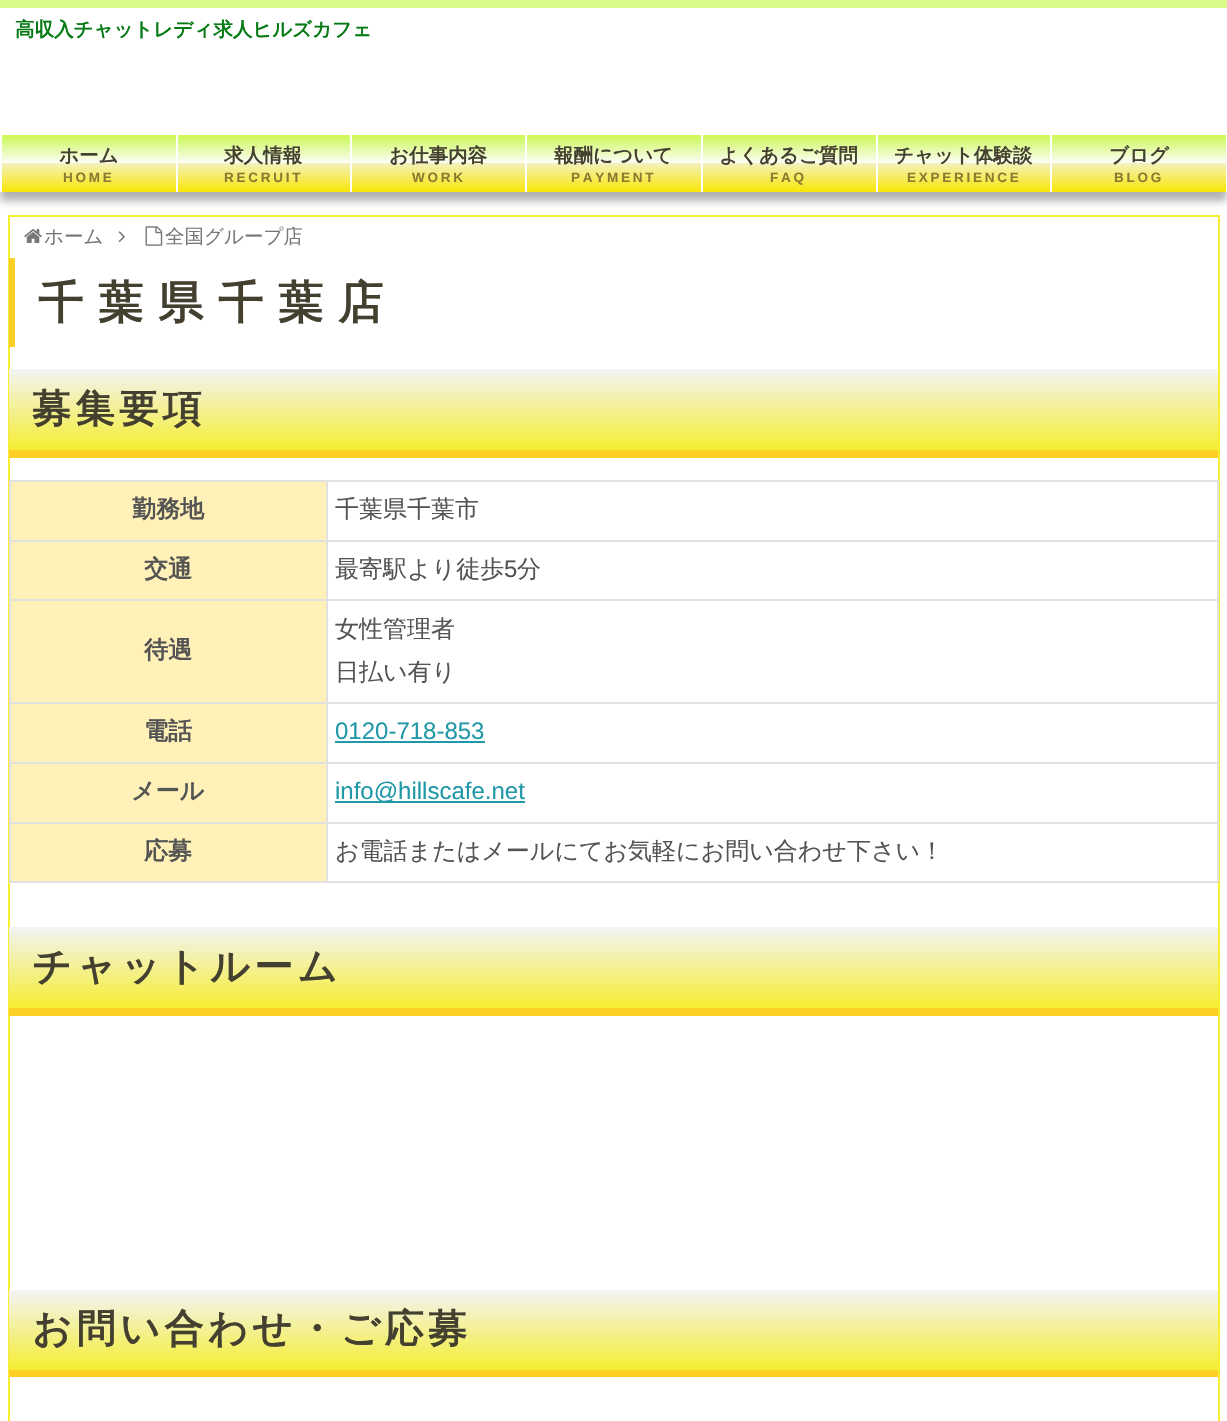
static SkFont makeFont(const char* family, int weight, float size, bool italic = false) {
  SkFontStyle style(weight, SkFontStyle::kNormal_Width,
    italic ? SkFontStyle::kItalic_Slant : SkFontStyle::kUpright_Slant);
  SkFont result(fontMgr->matchFamilyStyle(family, style), size);
  result.setSubpixel(true);
  return result;
}

static void text(SkCanvas* c, const char* s, float x, float y, const SkFont& font, SkColor color) {
  SkPaint ink(SkColor4f::FromColor(color));
  ink.setAntiAlias(true);
  c->drawString(s, x, y, font, ink);
}

static void spacedText(SkCanvas* c, const char* s, float x, float y, const SkFont& font, const SkPaint& ink, float letter, float word) {
  std::vector<SkGlyphID> glyphs(font.countText(s, strlen(s), SkTextEncoding::kUTF8));
  std::vector<float> xs(glyphs.size());
  font.textToGlyphs(s, strlen(s), SkTextEncoding::kUTF8, glyphs);
  font.getXPos(glyphs, xs, x);
  float extra = 0;
  for (size_t i = 0; i < glyphs.size(); i++) {
    xs[i] += extra;
    extra += letter + word * (glyphs[i] == font.unicharToGlyph(' '));
  }
  c->drawTextBlob(SkTextBlob::MakeFromPosHGlyphs(glyphs, xs, y, font), 0, 0, ink);
}

static void box(SkCanvas* c, float l, float t, float r, float b, SkColor color) {
  SkPaint ink(SkColor4f::FromColor(color));
  ink.setAntiAlias(true);
  c->drawRect(SkRect::MakeLTRB(l, t, r, b), ink);
}

static void picture(SkCanvas* c, const char* path, float l, float t, float r, float b) {
  auto image = SkImages::DeferredFromEncodedData(SkData::MakeFromFileName(path));
  c->drawImageRect(image, SkRect::MakeLTRB(l, t, r, b), SkSamplingOptions());
}

void draw(SkCanvas* c) {
  SkPaint paint;
  paint.setAntiAlias(true);
  c->clear(0xffffffff);
  box(c, 0, 0, 1227, 8, 0xffd8fa89);
  SkFont face1 = makeFont("WenQuanYi Zen Hei", 700, 19.5f);
  text(c, "高収入チャットレディ求人ヒルズカフェ", 15, 36, face1, 0xff067a14);
  paint.setColor(0x4d000000);
  paint.setMaskFilter(SkMaskFilter::MakeBlur(kNormal_SkBlurStyle, 4));
  c->drawRect(SkRect::MakeLTRB(0, 144, 1227, 201), paint);
  paint.setMaskFilter(nullptr);
  {
    const SkColor colors[] = {0xffccf854, 0xfffefefc, 0xfff5f1ba, 0xfff8e605};
    const float stops[] = {0, 0.5f, 0.5f, 1};
    const SkPoint ends[] = {{614, 135}, {614, 192}};
    paint.setShader(SkGradientShader::MakeLinear(ends, colors, stops, 4, SkTileMode::kClamp));
    paint.setAlpha(255);
  }
  c->drawRect(SkRect::MakeLTRB(2, 135, 1226, 192), paint);
  box(c, 176, 135, 178, 192, 0xffffffff);
  box(c, 0, 135, 2, 192, 0xffffffff);
  text(c, "ホーム", 59, 162, face1, 0xff444030);
  SkFont face2 = makeFont("Liberation Sans", 700, 13.5f);
  paint.setShader(nullptr);
  paint.setColor(0xff8c792f);
  spacedText(c, "HOME", 63, 182, face2, paint, 2.75f, 0);
  box(c, 350, 135, 352, 192, 0xffffffff);
  text(c, "求人情報", 224, 162, face1, 0xff444030);
  spacedText(c, "RECRUIT", 224, 182, face2, paint, 2.75f, 0);
  box(c, 525, 135, 527, 192, 0xffffffff);
  text(c, "お仕事内容", 389, 162, face1, 0xff444030);
  spacedText(c, "WORK", 412, 182, face2, paint, 2.75f, 0);
  box(c, 701, 135, 703, 192, 0xffffffff);
  text(c, "報酬について", 554, 162, face1, 0xff444030);
  spacedText(c, "PAYMENT", 571, 182, face2, paint, 2.75f, 0);
  box(c, 876, 135, 878, 192, 0xffffffff);
  text(c, "よくあるご質問", 719, 162, face1, 0xff444030);
  spacedText(c, "FAQ", 770, 182, face2, paint, 2.75f, 0);
  box(c, 1050, 135, 1052, 192, 0xffffffff);
  text(c, "チャット体験談", 894, 162, face1, 0xff444030);
  spacedText(c, "EXPERIENCE", 907, 182, face2, paint, 2.75f, 0);
  box(c, 1226, 135, 1227, 192, 0xffffffff);
  text(c, "ブログ", 1109, 162, face1, 0xff444030);
  spacedText(c, "BLOG", 1114, 182, face2, paint, 2.75f, 0);
  paint.setStyle(SkPaint::kStroke_Style);
  paint.setStrokeWidth(2);
  paint.setColor(0xfff5ee31);
  c->drawRect(SkRect::MakeLTRB(9, 216, 1219, 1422), paint);
  picture(c, "img_01.png", 24, 229, 42, 243);
  SkFont face3 = makeFont("WenQuanYi Zen Hei", 500, 19.5f);
  text(c, "ホーム", 44, 243, face3, 0xff777777);
  picture(c, "img_02.png", 118, 231, 125, 243);
  picture(c, "img_03.png", 145, 226, 163, 246);
  text(c, "全国グループ店", 165, 243, face3, 0xff777777);
  box(c, 9, 258, 15, 347, 0xfffdce24);
  SkFont face4 = makeFont("WenQuanYi Zen Hei", 700, 45);
  paint.setStyle(SkPaint::kFill_Style);
  paint.setColor(0xff444030);
  spacedText(c, "千葉県千葉店", 38, 318, face4, paint, 15, 0);
  {
    const SkColor colors[] = {0xfff3f3f5, 0xfff5ee31};
    const float stops[] = {0, 1};
    const SkPoint ends[] = {{614, 369}, {614, 450}};
    paint.setShader(SkGradientShader::MakeLinear(ends, colors, stops, 2, SkTileMode::kClamp));
    paint.setAlpha(255);
  }
  c->drawRect(SkRect::MakeLTRB(9, 369, 1218, 450), paint);
  box(c, 9, 450, 1218, 458, 0xfffdce24);
  SkFont face5 = makeFont("WenQuanYi Zen Hei", 700, 39);
  paint.setShader(nullptr);
  paint.setColor(0xff444030);
  spacedText(c, "募集要項", 32, 422, face5, paint, 4.5f, 0);
  box(c, 9, 480, 1218, 482, 0xffe2e1e1);
  box(c, 1217, 480, 1219, 882, 0xffe2e1e1);
  box(c, 9, 881, 1218, 883, 0xffe2e1e1);
  box(c, 9, 480, 11, 882, 0xffe2e1e1);
  box(c, 11, 482, 326, 540, 0xfffff1b7);
  SkFont face6 = makeFont("WenQuanYi Zen Hei", 700, 24);
  text(c, "勤務地", 132, 517, face6, 0xff545454);
  box(c, 326, 540, 1218, 542, 0xffe2e1e1);
  box(c, 326, 599, 1218, 601, 0xffe2e1e1);
  box(c, 326, 702, 1218, 704, 0xffe2e1e1);
  box(c, 326, 762, 1218, 764, 0xffe2e1e1);
  box(c, 326, 822, 1218, 824, 0xffe2e1e1);
  box(c, 326, 822, 328, 882, 0xffe2e1e1);
  box(c, 9, 822, 327, 824, 0xffe2e1e1);
  box(c, 326, 762, 328, 824, 0xffe2e1e1);
  box(c, 9, 762, 327, 764, 0xffe2e1e1);
  box(c, 326, 702, 328, 764, 0xffe2e1e1);
  box(c, 9, 702, 327, 704, 0xffe2e1e1);
  box(c, 326, 599, 328, 704, 0xffe2e1e1);
  box(c, 9, 599, 327, 601, 0xffe2e1e1);
  box(c, 326, 540, 328, 600, 0xffe2e1e1);
  box(c, 9, 540, 327, 542, 0xffe2e1e1);
  box(c, 326, 480, 328, 542, 0xffe2e1e1);
  SkFont face7 = makeFont("WenQuanYi Zen Hei", 500, 24);
  text(c, "千葉県千葉市", 335, 517, face7, 0xff545454);
  box(c, 11, 542, 326, 599, 0xfffff1b7);
  text(c, "交通", 144, 577, face6, 0xff545454);
  text(c, "最寄駅より徒歩", 335, 577, face7, 0xff545454);
  SkFont face8 = makeFont("Liberation Sans", 400, 24);
  text(c, "5", 504, 577, face8, 0xff545454);
  text(c, "分", 517, 577, face7, 0xff545454);
  box(c, 11, 601, 326, 702, 0xfffff1b7);
  text(c, "待遇", 144, 658, face6, 0xff545454);
  text(c, "女性管理者", 335, 637, face7, 0xff545454);
  text(c, "日払い有り", 335, 680, face7, 0xff545454);
  box(c, 11, 704, 326, 762, 0xfffff1b7);
  text(c, "電話", 144, 739, face6, 0xff545454);
  text(c, "0120-718-853", 335, 739, face8, 0xff2098a8);
  box(c, 335, 741, 485, 743, 0xff2098a8);
  box(c, 11, 764, 326, 822, 0xfffff1b7);
  text(c, "メール", 131, 799, face6, 0xff545454);
  box(c, 335, 801, 525, 803, 0xff2098a8);
  text(c, "info@hillscafe.net", 335, 799, face8, 0xff2098a8);
  box(c, 11, 824, 326, 881, 0xfffff1b7);
  text(c, "応募", 144, 859, face6, 0xff545454);
  text(c, "お電話またはメールにてお気軽にお問い合わせ下さい！", 335, 859, face7, 0xff545454);
  {
    const SkColor colors[] = {0xfff3f3f5, 0xfff5ee31};
    const float stops[] = {0, 1};
    const SkPoint ends[] = {{614, 927}, {614, 1008}};
    paint.setShader(SkGradientShader::MakeLinear(ends, colors, stops, 2, SkTileMode::kClamp));
    paint.setAlpha(255);
  }
  c->drawRect(SkRect::MakeLTRB(9, 927, 1218, 1008), paint);
  box(c, 9, 1008, 1218, 1016, 0xfffdce24);
  paint.setShader(nullptr);
  paint.setColor(0xff444030);
  spacedText(c, "チャットルーム", 32, 980, face5, paint, 4.5f, 0);
  {
    const SkColor colors[] = {0xfff3f3f5, 0xfff5ee31};
    const float stops[] = {0, 1};
    const SkPoint ends[] = {{614, 1290}, {614, 1370}};
    paint.setShader(SkGradientShader::MakeLinear(ends, colors, stops, 2, SkTileMode::kClamp));
    paint.setAlpha(255);
  }
  c->drawRect(SkRect::MakeLTRB(9, 1290, 1218, 1370), paint);
  box(c, 9, 1370, 1218, 1377, 0xfffdce24);
  paint.setShader(nullptr);
  paint.setColor(0xff444030);
  spacedText(c, "お問い合わせ・ご応募", 32, 1342, face5, paint, 4.5f, 0);
}
